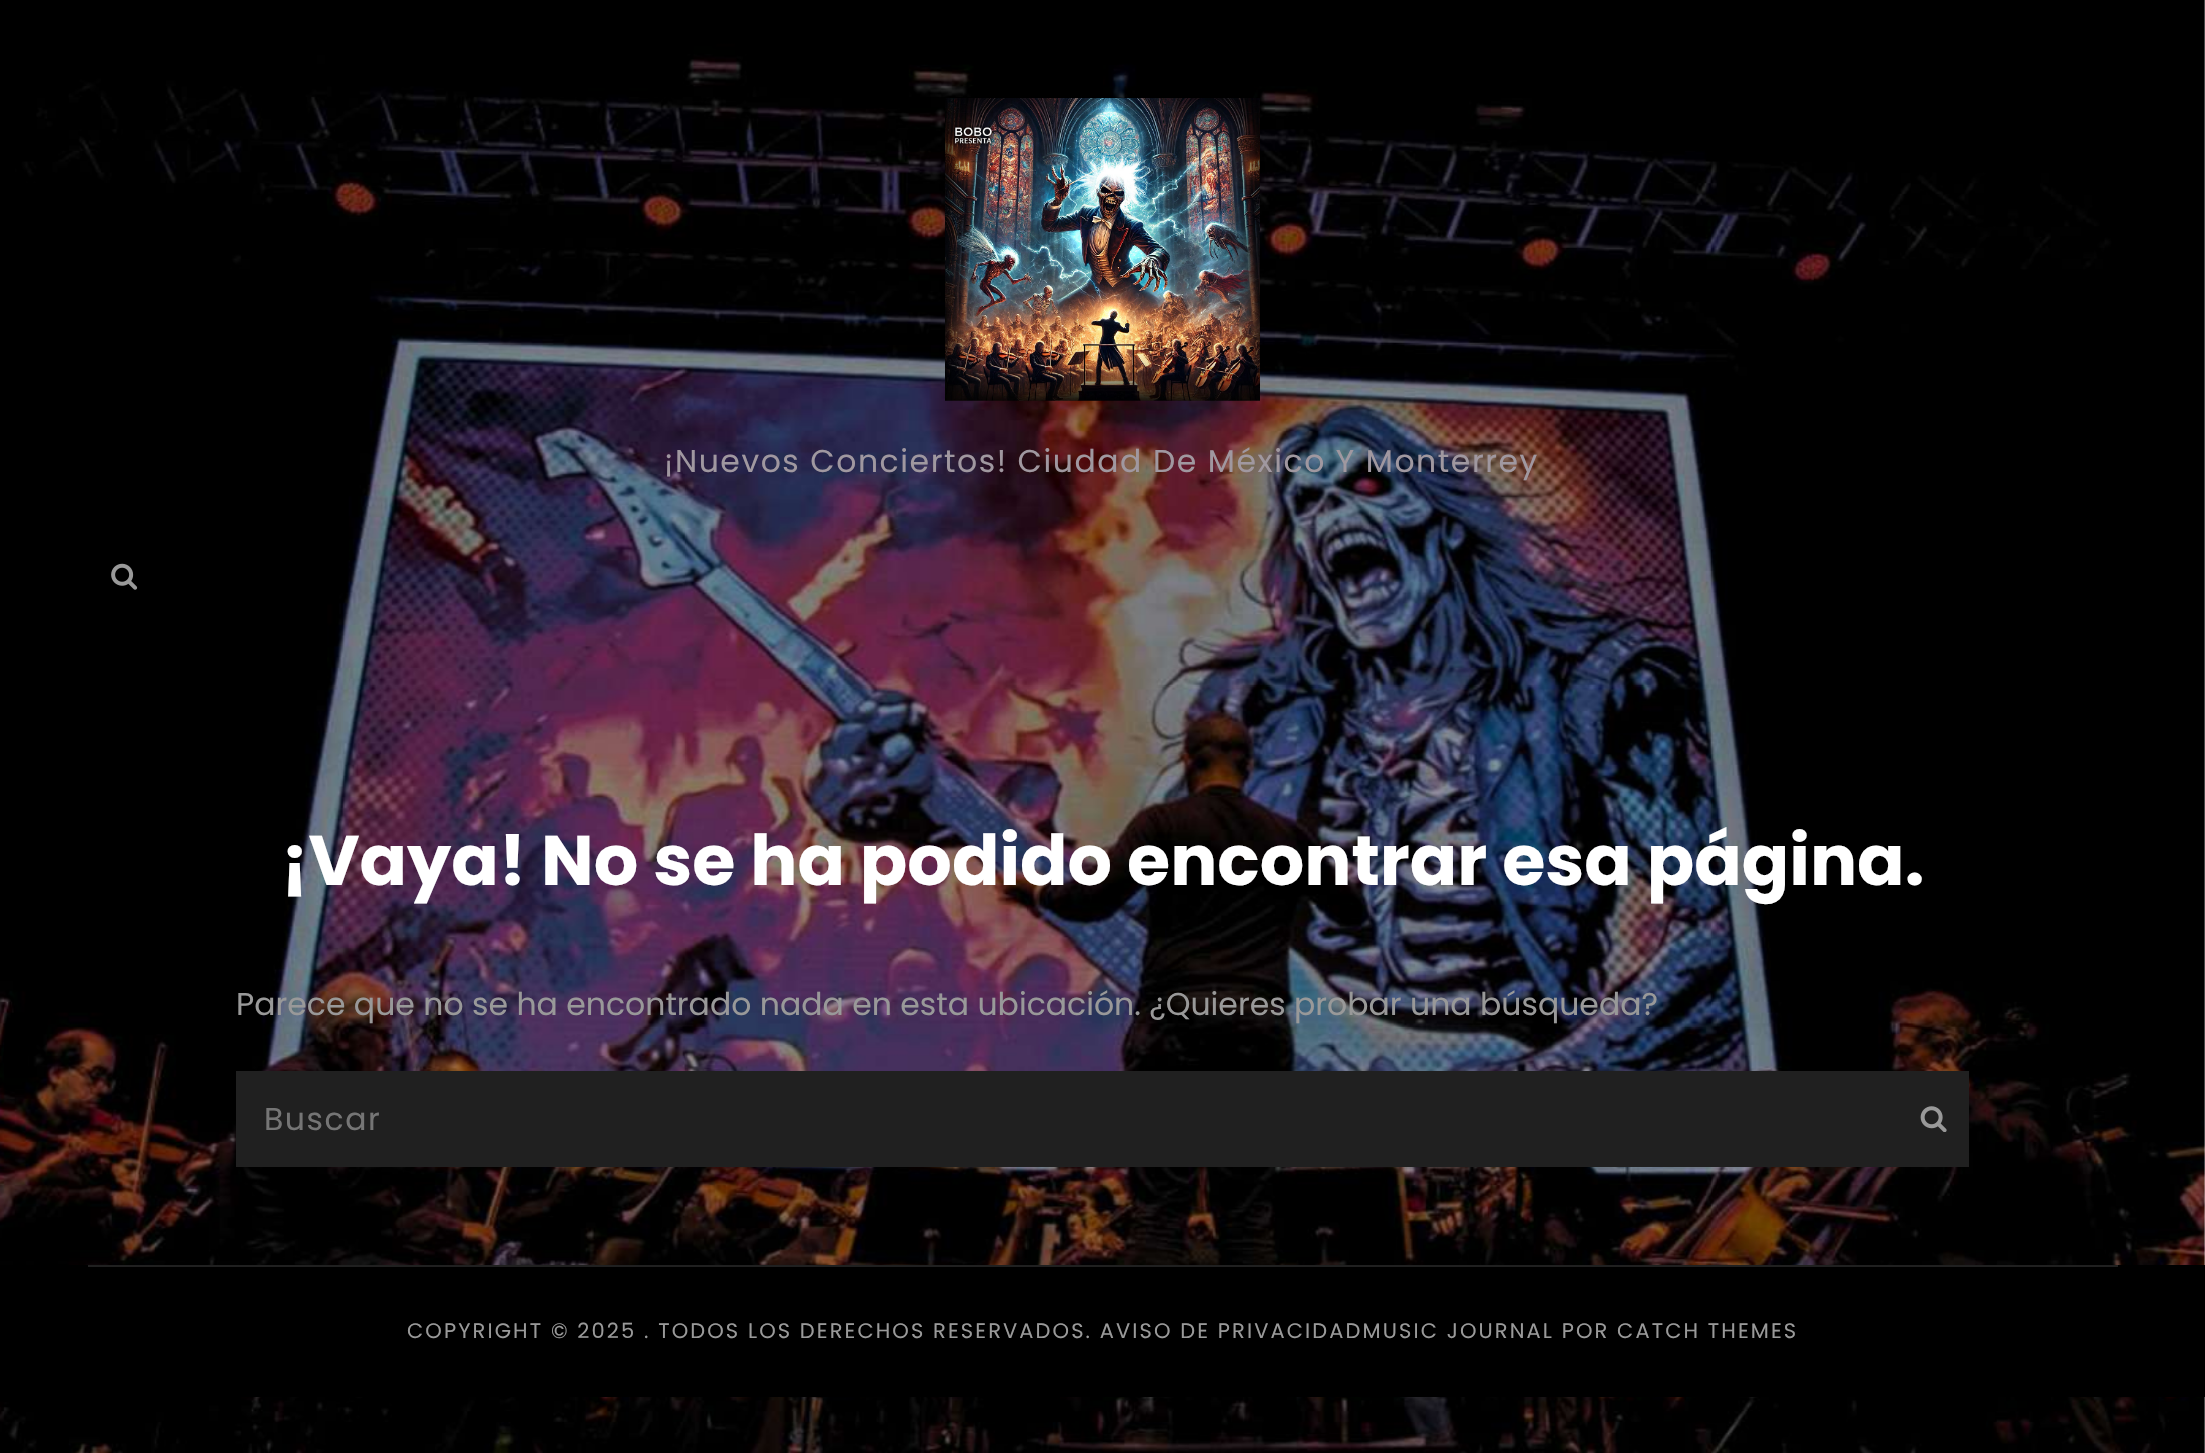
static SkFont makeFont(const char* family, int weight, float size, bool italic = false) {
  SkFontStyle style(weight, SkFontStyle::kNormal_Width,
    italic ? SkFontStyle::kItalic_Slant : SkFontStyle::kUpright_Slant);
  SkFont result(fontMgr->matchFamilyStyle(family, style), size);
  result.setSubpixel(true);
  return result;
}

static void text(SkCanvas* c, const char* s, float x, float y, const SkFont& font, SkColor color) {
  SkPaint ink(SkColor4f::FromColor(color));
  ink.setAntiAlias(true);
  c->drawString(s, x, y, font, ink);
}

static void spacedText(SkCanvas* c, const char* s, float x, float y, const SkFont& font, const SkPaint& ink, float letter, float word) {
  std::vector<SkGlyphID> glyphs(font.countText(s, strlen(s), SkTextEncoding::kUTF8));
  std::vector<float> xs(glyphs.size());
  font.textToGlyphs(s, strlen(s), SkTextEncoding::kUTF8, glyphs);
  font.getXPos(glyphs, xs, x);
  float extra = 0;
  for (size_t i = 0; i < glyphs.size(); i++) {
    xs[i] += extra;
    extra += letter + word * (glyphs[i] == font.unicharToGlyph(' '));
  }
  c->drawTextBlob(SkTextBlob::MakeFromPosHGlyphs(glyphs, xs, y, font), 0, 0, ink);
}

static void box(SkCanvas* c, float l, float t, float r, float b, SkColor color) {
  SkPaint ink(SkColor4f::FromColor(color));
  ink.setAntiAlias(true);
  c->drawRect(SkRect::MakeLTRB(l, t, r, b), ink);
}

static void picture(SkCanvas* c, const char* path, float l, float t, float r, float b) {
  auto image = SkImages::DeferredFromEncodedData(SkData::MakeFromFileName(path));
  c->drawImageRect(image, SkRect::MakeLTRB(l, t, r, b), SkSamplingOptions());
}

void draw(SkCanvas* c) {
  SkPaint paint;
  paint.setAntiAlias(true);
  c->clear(0xffffffff);
  picture(c, "img_01.png", 0, 0, 2205, 1453);
  picture(c, "img_02.png", 945, 98, 1260, 401);
  SkFont face1 = makeFont("Poppins", 400, 31.5f);
  paint.setColor(0xffa098a0);
  spacedText(c, "¡Nuevos Conciertos! Ciudad De México Y Monterrey", 664, 472, face1, paint, 1.55f, 0);
  picture(c, "img_03.png", 111, 563, 138, 590);
  SkFont face2 = makeFont("Poppins", 700, 70);
  text(c, "¡Vaya! No se ha podido encontrar esa página.", 281, 885, face2, 0xffffffff);
  text(c, "Parece que no se ha encontrado nada en esta ubicación. ¿Quieres probar una búsqueda?", 236, 1015, face1, 0xff999999);
  box(c, 236, 1071, 1969, 1167, 0xff202020);
  paint.setColor(0xff757575);
  spacedText(c, "Buscar", 264, 1130, face1, paint, 1.55f, 0);
  picture(c, "img_04.png", 1920, 1106, 1947, 1132);
  box(c, 0, 1265, 2205, 1397, 0xff000000);
  box(c, 88, 1265, 2118, 1267, 0xff202020);
  SkFont face3 = makeFont("Poppins", 400, 21);
  paint.setColor(0xff999999);
  spacedText(c, "COPYRIGHT © 2025 . TODOS LOS DERECHOS RESERVADOS. AVISO DE PRIVACIDADMUSIC JOURNAL POR CATCH THEMES", 407, 1338, face3, paint, 2.1f, 0);
}
